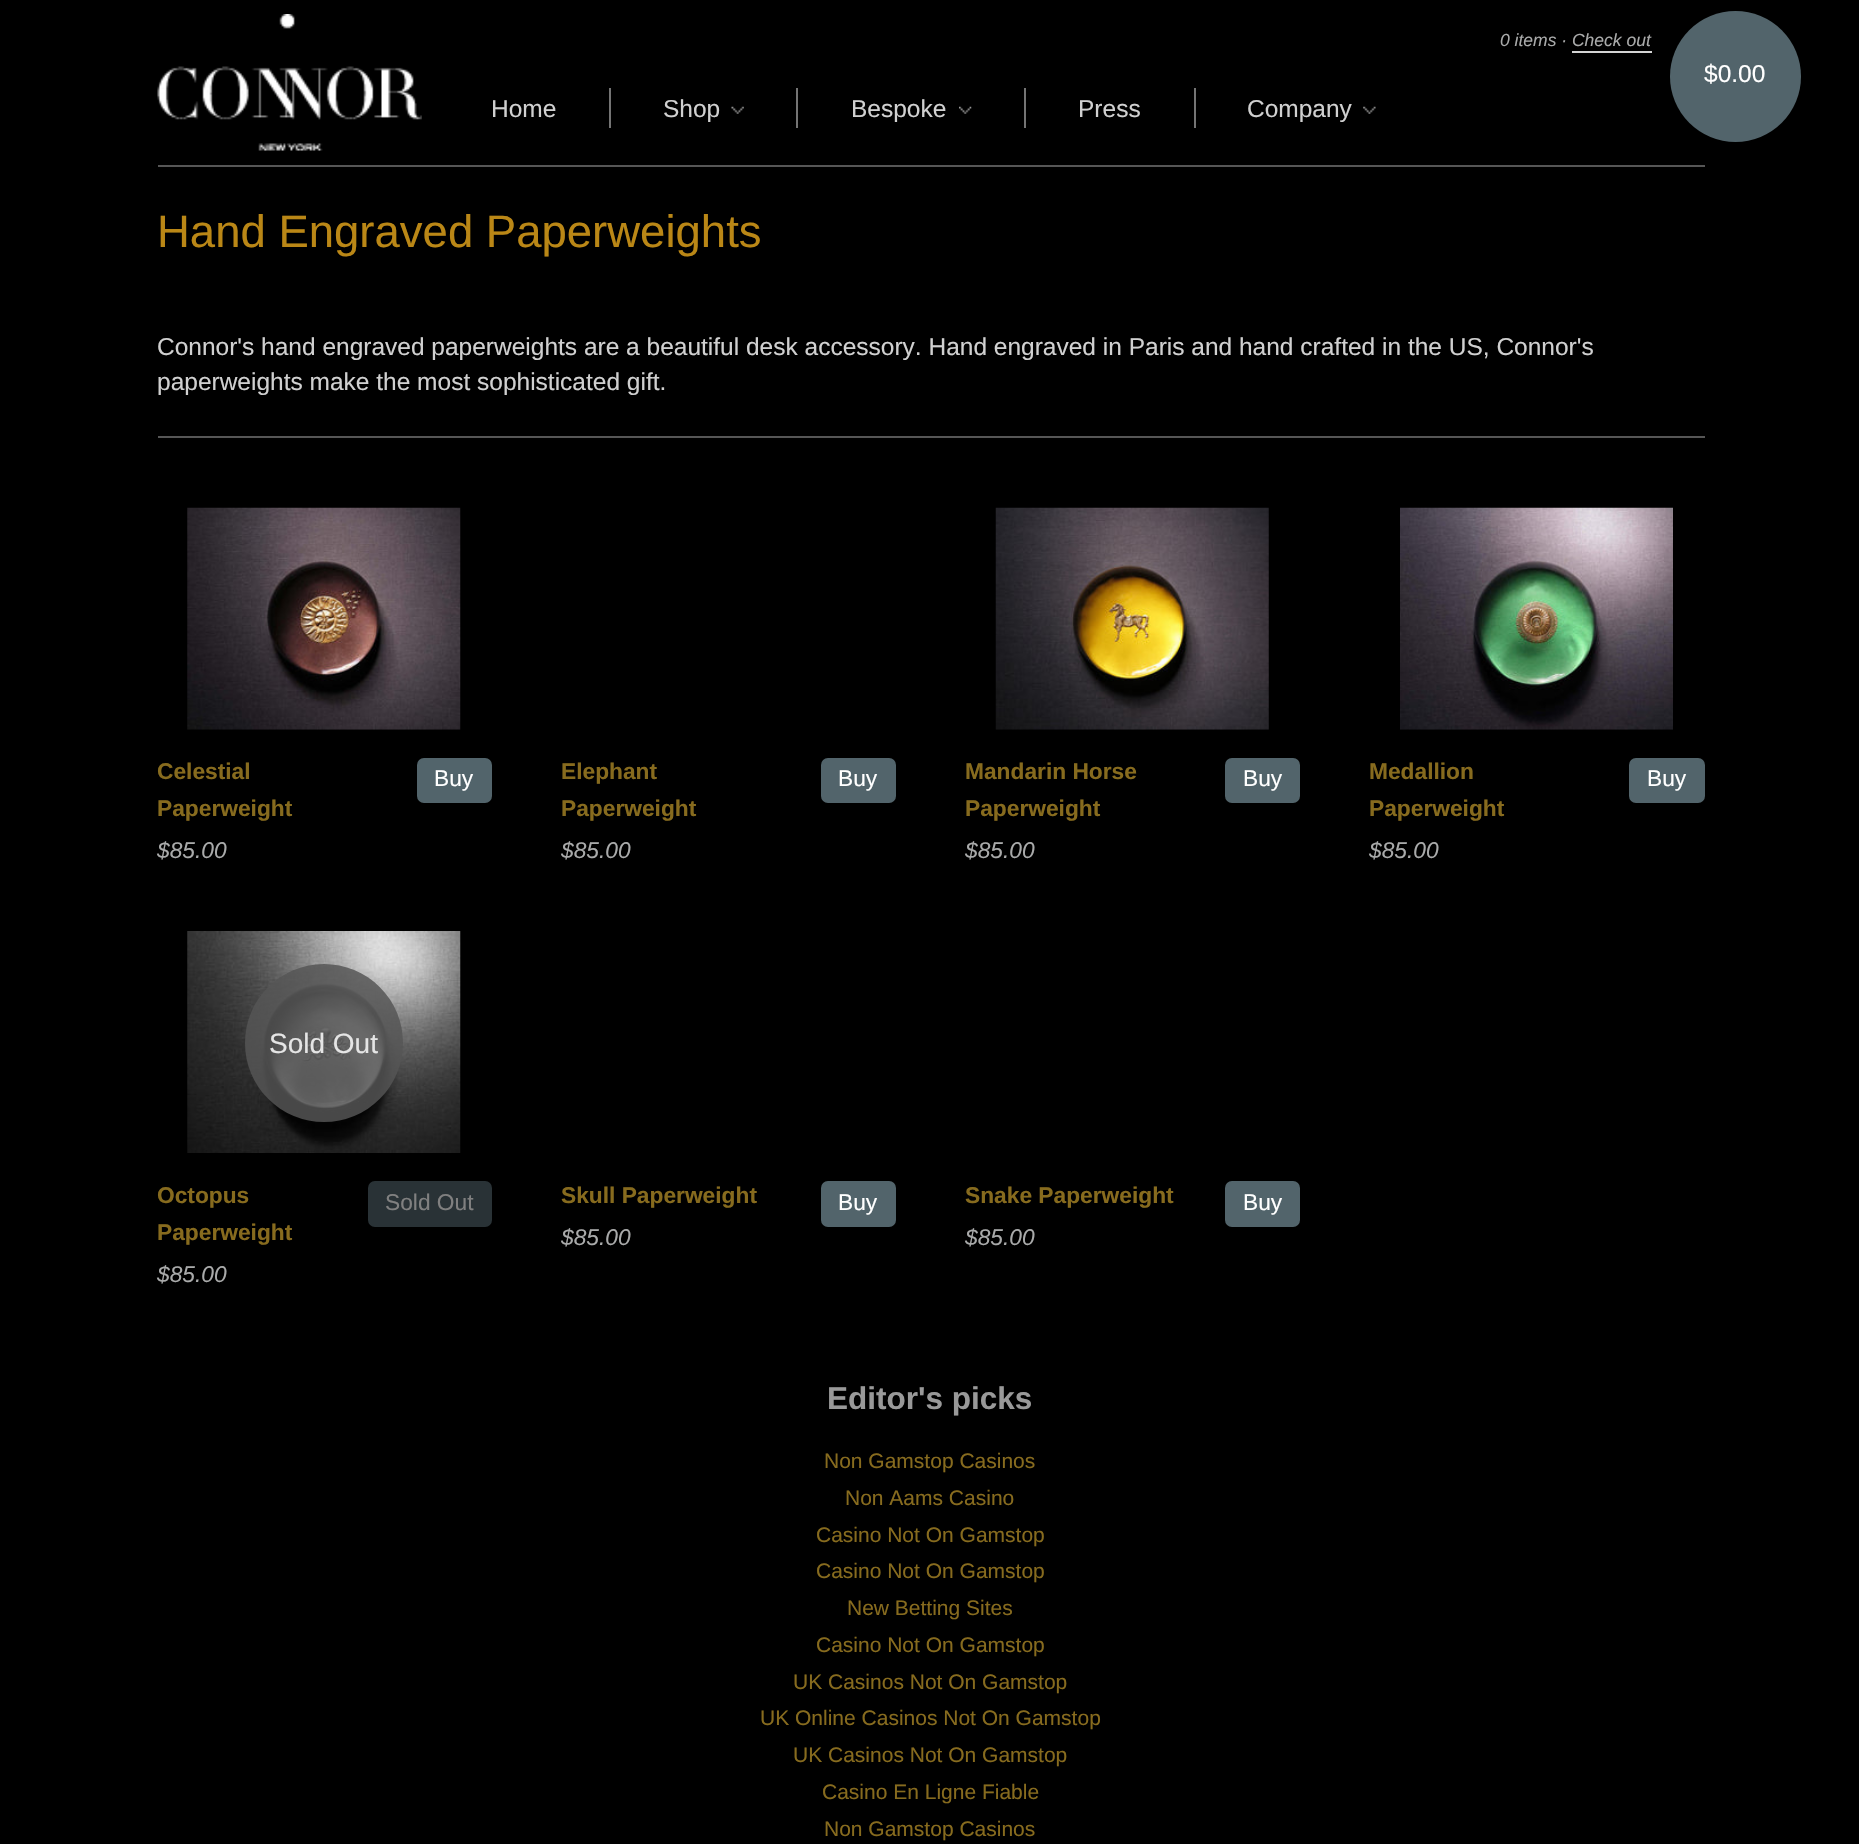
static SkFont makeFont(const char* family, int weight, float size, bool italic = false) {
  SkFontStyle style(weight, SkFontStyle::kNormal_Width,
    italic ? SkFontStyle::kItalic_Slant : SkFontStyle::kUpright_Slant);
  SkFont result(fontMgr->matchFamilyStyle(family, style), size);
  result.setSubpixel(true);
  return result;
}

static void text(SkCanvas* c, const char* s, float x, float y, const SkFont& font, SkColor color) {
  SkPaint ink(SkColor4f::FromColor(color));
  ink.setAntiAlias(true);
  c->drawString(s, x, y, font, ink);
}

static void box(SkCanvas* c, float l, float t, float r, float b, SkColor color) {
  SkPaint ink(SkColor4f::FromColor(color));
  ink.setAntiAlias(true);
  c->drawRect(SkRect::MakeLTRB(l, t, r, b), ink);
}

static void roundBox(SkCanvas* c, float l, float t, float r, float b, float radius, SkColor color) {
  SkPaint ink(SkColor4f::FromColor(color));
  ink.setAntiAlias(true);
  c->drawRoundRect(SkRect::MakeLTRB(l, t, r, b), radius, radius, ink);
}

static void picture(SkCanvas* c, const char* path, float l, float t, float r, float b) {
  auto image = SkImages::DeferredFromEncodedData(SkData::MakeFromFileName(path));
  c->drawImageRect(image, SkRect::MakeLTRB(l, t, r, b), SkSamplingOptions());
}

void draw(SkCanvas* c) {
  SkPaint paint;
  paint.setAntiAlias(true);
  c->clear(0xff000000);
  box(c, 158, 165, 1705, 167, 0xff565656);
  picture(c, "img_01.png", 157, 14, 422, 151);
  SkFont face1 = makeFont("Liberation Sans", 400, 17.5f, true);
  text(c, "0 items · Check out", 1500, 46, face1, 0xffa9aaaa);
  box(c, 1572, 51, 1652, 53, 0xffd4d4d4);
  paint.setColor(0xff52646b);
  c->drawCircle(1735.5f, 76.5f, 65.5f, paint);
  SkFont face2 = makeFont("Liberation Sans", 400, 24.5f);
  text(c, "$0.00", 1704, 82, face2, 0xffffffff);
  text(c, "Home", 491, 117, face2, 0xffd0d0d0);
  box(c, 609, 88, 611, 128, 0xff747474);
  text(c, "Shop", 663, 117, face2, 0xffd0d0d0);
  picture(c, "img_02.png", 731, 106, 744, 114);
  box(c, 796, 88, 798, 128, 0xff747474);
  text(c, "Bespoke", 851, 117, face2, 0xffd0d0d0);
  picture(c, "img_03.png", 959, 106, 972, 114);
  box(c, 1024, 88, 1026, 128, 0xff747474);
  text(c, "Press", 1078, 117, face2, 0xffd0d0d0);
  box(c, 1194, 88, 1196, 128, 0xff747474);
  text(c, "Company", 1247, 117, face2, 0xffd0d0d0);
  picture(c, "img_04.png", 1363, 106, 1376, 114);
  SkFont face3 = makeFont("Liberation Sans", 400, 45.5f);
  text(c, "Hand Engraved Paperweights", 157, 247, face3, 0xffba8716);
  box(c, 158, 436, 1705, 438, 0xff565656);
  text(c, "Connor's hand engraved paperweights are a beautiful desk accessory. Hand engraved in Paris and hand crafted in the US, Connor's", 157, 355, face2, 0xffd0d0d0);
  text(c, "paperweights make the most sophisticated gift.", 157, 390, face2, 0xffd0d0d0);
  picture(c, "img_05.png", 187, 507, 461, 730);
  SkFont face4 = makeFont("Liberation Sans", 700, 22.75f);
  text(c, "Celestial", 157, 779, face4, 0xff876b1e);
  text(c, "Paperweight", 157, 816, face4, 0xff876b1e);
  SkFont face5 = makeFont("Liberation Sans", 400, 22.75f, true);
  text(c, "$85.00", 157, 858, face5, 0xffa9aaaa);
  roundBox(c, 417, 758, 492, 803, 7, 0xff52646b);
  SkFont face6 = makeFont("Liberation Sans", 400, 22.75f);
  text(c, "Buy", 434, 786, face6, 0xffffffff);
  text(c, "Elephant", 561, 779, face4, 0xff876b1e);
  text(c, "Paperweight", 561, 816, face4, 0xff876b1e);
  text(c, "$85.00", 561, 858, face5, 0xffa9aaaa);
  roundBox(c, 821, 758, 896, 803, 7, 0xff52646b);
  text(c, "Buy", 838, 786, face6, 0xffffffff);
  picture(c, "img_06.png", 995, 507, 1269, 730);
  text(c, "Mandarin Horse", 965, 779, face4, 0xff876b1e);
  text(c, "Paperweight", 965, 816, face4, 0xff876b1e);
  text(c, "$85.00", 965, 858, face5, 0xffa9aaaa);
  roundBox(c, 1225, 758, 1300, 803, 7, 0xff52646b);
  text(c, "Buy", 1243, 786, face6, 0xffffffff);
  picture(c, "img_07.png", 1400, 507, 1673, 730);
  text(c, "Medallion", 1369, 779, face4, 0xff876b1e);
  text(c, "Paperweight", 1369, 816, face4, 0xff876b1e);
  text(c, "$85.00", 1369, 858, face5, 0xffa9aaaa);
  roundBox(c, 1629, 758, 1705, 803, 7, 0xff52646b);
  text(c, "Buy", 1647, 786, face6, 0xffffffff);
  picture(c, "img_08.png", 187, 931, 461, 1153);
  paint.setColor(0xd6555555);
  c->drawCircle(324, 1043, 79, paint);
  SkFont face7 = makeFont("Liberation Sans", 400, 28);
  text(c, "Sold Out", 269, 1053, face7, 0xffe5e5e5);
  text(c, "Octopus", 157, 1203, face4, 0xff876b1e);
  text(c, "Paperweight", 157, 1240, face4, 0xff876b1e);
  text(c, "$85.00", 157, 1282, face5, 0xffa9aaaa);
  roundBox(c, 368, 1181, 492, 1227, 7, 0xff293236);
  text(c, "Sold Out", 385, 1210, face6, 0xff808080);
  text(c, "Skull Paperweight", 561, 1203, face4, 0xff876b1e);
  text(c, "$85.00", 561, 1245, face5, 0xffa9aaaa);
  roundBox(c, 821, 1181, 896, 1227, 7, 0xff52646b);
  text(c, "Buy", 838, 1210, face6, 0xffffffff);
  text(c, "Snake Paperweight", 965, 1203, face4, 0xff876b1e);
  text(c, "$85.00", 965, 1245, face5, 0xffa9aaaa);
  roundBox(c, 1225, 1181, 1300, 1227, 7, 0xff52646b);
  text(c, "Buy", 1243, 1210, face6, 0xffffffff);
  SkFont face8 = makeFont("Liberation Sans", 700, 31.5f);
  text(c, "Editor's picks", 827, 1409, face8, 0xff999999);
  SkFont face9 = makeFont("Liberation Sans", 400, 21);
  text(c, "Non Gamstop Casinos", 824, 1468, face9, 0xff876b1e);
  text(c, "Non Aams Casino", 845, 1505, face9, 0xff876b1e);
  text(c, "Casino Not On Gamstop", 816, 1542, face9, 0xff876b1e);
  text(c, "Casino Not On Gamstop", 816, 1578, face9, 0xff876b1e);
  text(c, "New Betting Sites", 847, 1615, face9, 0xff876b1e);
  text(c, "Casino Not On Gamstop", 816, 1652, face9, 0xff876b1e);
  text(c, "UK Casinos Not On Gamstop", 793, 1689, face9, 0xff876b1e);
  text(c, "UK Online Casinos Not On Gamstop", 760, 1725, face9, 0xff876b1e);
  text(c, "UK Casinos Not On Gamstop", 793, 1762, face9, 0xff876b1e);
  text(c, "Casino En Ligne Fiable", 822, 1799, face9, 0xff876b1e);
  text(c, "Non Gamstop Casinos", 824, 1836, face9, 0xff876b1e);
}
